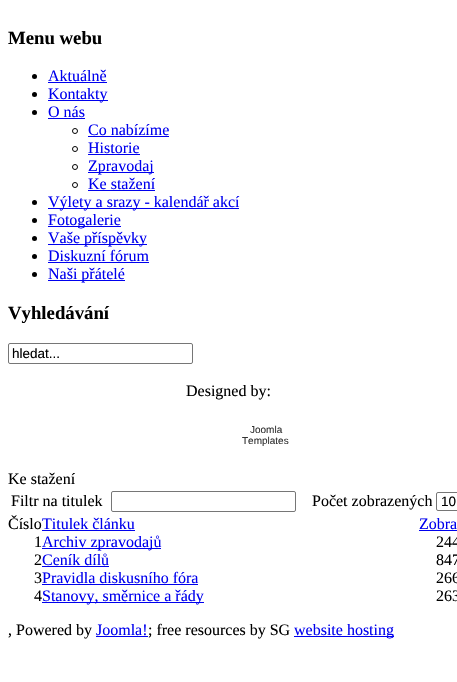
static SkFont makeFont(const char* family, int weight, float size, bool italic = false) {
  SkFontStyle style(weight, SkFontStyle::kNormal_Width,
    italic ? SkFontStyle::kItalic_Slant : SkFontStyle::kUpright_Slant);
  SkFont result(fontMgr->matchFamilyStyle(family, style), size);
  result.setSubpixel(true);
  return result;
}

static void text(SkCanvas* c, const char* s, float x, float y, const SkFont& font, SkColor color) {
  SkPaint ink(SkColor4f::FromColor(color));
  ink.setAntiAlias(true);
  c->drawString(s, x, y, font, ink);
}

static void box(SkCanvas* c, float l, float t, float r, float b, SkColor color) {
  SkPaint ink(SkColor4f::FromColor(color));
  ink.setAntiAlias(true);
  c->drawRect(SkRect::MakeLTRB(l, t, r, b), ink);
}

void draw(SkCanvas* c) {
  SkPaint paint;
  paint.setAntiAlias(true);
  c->clear(0xffffffff);
  SkFont face1 = makeFont("Liberation Serif", 700, 18.75f);
  text(c, "Menu webu", 8, 44, face1, 0xff000000);
  paint.setColor(0xff000000);
  c->drawCircle(34.5f, 76.5f, 2.5f, paint);
  SkFont face2 = makeFont("Liberation Serif", 400, 16);
  text(c, "Aktuálně", 48, 81, face2, 0xff0000ee);
  box(c, 48, 82, 107, 83, 0xff0000ee);
  c->drawCircle(34.5f, 94.5f, 2.5f, paint);
  box(c, 48, 100, 108, 101, 0xff0000ee);
  text(c, "Kontakty", 48, 99, face2, 0xff0000ee);
  c->drawCircle(34.5f, 112.5f, 2.5f, paint);
  text(c, "O nás", 48, 117, face2, 0xff0000ee);
  box(c, 48, 118, 85, 119, 0xff0000ee);
  paint.setStyle(SkPaint::kStroke_Style);
  paint.setStrokeWidth(1);
  c->drawCircle(75, 131, 2.5f, paint);
  text(c, "Co nabízíme", 88, 135, face2, 0xff0000ee);
  box(c, 88, 136, 169, 137, 0xff0000ee);
  c->drawCircle(75, 149, 2.5f, paint);
  text(c, "Historie", 88, 153, face2, 0xff0000ee);
  box(c, 88, 154, 140, 155, 0xff0000ee);
  c->drawCircle(75, 167, 2.5f, paint);
  box(c, 88, 172, 154, 173, 0xff0000ee);
  text(c, "Zpravodaj", 88, 171, face2, 0xff0000ee);
  c->drawCircle(75, 185, 2.5f, paint);
  text(c, "Ke stažení", 88, 189, face2, 0xff0000ee);
  box(c, 88, 190, 155, 191, 0xff0000ee);
  paint.setStyle(SkPaint::kFill_Style);
  c->drawCircle(34.5f, 202.5f, 2.5f, paint);
  box(c, 48, 208, 239, 209, 0xff0000ee);
  text(c, "Výlety a srazy - kalendář akcí", 48, 207, face2, 0xff0000ee);
  c->drawCircle(34.5f, 220.5f, 2.5f, paint);
  box(c, 48, 226, 121, 227, 0xff0000ee);
  text(c, "Fotogalerie", 48, 225, face2, 0xff0000ee);
  c->drawCircle(34.5f, 238.5f, 2.5f, paint);
  box(c, 48, 244, 147, 245, 0xff0000ee);
  text(c, "Vaše příspěvky", 48, 243, face2, 0xff0000ee);
  c->drawCircle(34.5f, 256.5f, 2.5f, paint);
  text(c, "Diskuzní fórum", 48, 261, face2, 0xff0000ee);
  box(c, 48, 262, 149, 263, 0xff0000ee);
  c->drawCircle(34.5f, 274.5f, 2.5f, paint);
  box(c, 48, 280, 125, 281, 0xff0000ee);
  text(c, "Naši přátelé", 48, 279, face2, 0xff0000ee);
  text(c, "Vyhledávání", 8, 319, face1, 0xff000000);
  paint.setStyle(SkPaint::kStroke_Style);
  paint.setColor(0xff767676);
  c->drawRoundRect(SkRect::MakeLTRB(8.5f, 343.5f, 192.5f, 363.5f), 1.5f, 1.5f, paint);
  SkFont face3 = makeFont("Liberation Sans", 400, 13.5f);
  text(c, "hledat...", 12, 358, face3, 0xff000000);
  text(c, "Designed by:", 186, 396, face2, 0xff000000);
  SkFont face4 = makeFont("Liberation Sans", 400, 10);
  text(c, "Joomla", 250, 433, face4, 0xff333333);
  text(c, "Templates", 242, 444, face4, 0xff333333);
  text(c, "Ke stažení", 8, 484, face2, 0xff000000);
  text(c, "Filtr na titulek", 11, 506, face2, 0xff000000);
  c->drawRoundRect(SkRect::MakeLTRB(111.5f, 491.5f, 295.5f, 511.5f), 1.5f, 1.5f, paint);
  text(c, "Počet zobrazených", 312, 506, face2, 0xff000000);
  c->drawRoundRect(SkRect::MakeLTRB(436.5f, 492.5f, 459.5f, 510.5f), 1.5f, 1.5f, paint);
  text(c, "10", 441, 506, face3, 0xff000000);
  text(c, "Číslo", 8, 529, face2, 0xff000000);
  text(c, "Titulek článku", 42, 529, face2, 0xff0000ee);
  box(c, 42, 530, 135, 531, 0xff0000ee);
  text(c, "Zobra", 419, 529, face2, 0xff0000ee);
  box(c, 419, 530, 457, 531, 0xff0000ee);
  text(c, "1", 34, 547, face2, 0xff000000);
  box(c, 42, 548, 161, 549, 0xff0000ee);
  text(c, "Archiv zpravodajů", 42, 547, face2, 0xff0000ee);
  text(c, "244", 436, 547, face2, 0xff000000);
  text(c, "2", 34, 565, face2, 0xff000000);
  text(c, "Ceník dílů", 42, 565, face2, 0xff0000ee);
  box(c, 42, 566, 109, 567, 0xff0000ee);
  text(c, "847", 436, 565, face2, 0xff000000);
  text(c, "3", 34, 583, face2, 0xff000000);
  text(c, "Pravidla diskusního fóra", 42, 583, face2, 0xff0000ee);
  box(c, 42, 584, 198, 585, 0xff0000ee);
  text(c, "266", 436, 583, face2, 0xff000000);
  text(c, "4", 34, 601, face2, 0xff000000);
  box(c, 42, 602, 204, 603, 0xff0000ee);
  text(c, "Stanovy, směrnice a řády", 42, 601, face2, 0xff0000ee);
  text(c, "263", 436, 601, face2, 0xff000000);
  text(c, ", Powered by", 8, 635, face2, 0xff000000);
  text(c, "Joomla!", 96, 635, face2, 0xff0000ee);
  box(c, 96, 636, 148, 637, 0xff0000ee);
  text(c, "; free resources by SG", 148, 635, face2, 0xff000000);
  box(c, 294, 636, 394, 637, 0xff0000ee);
  text(c, "website hosting", 294, 635, face2, 0xff0000ee);
}
